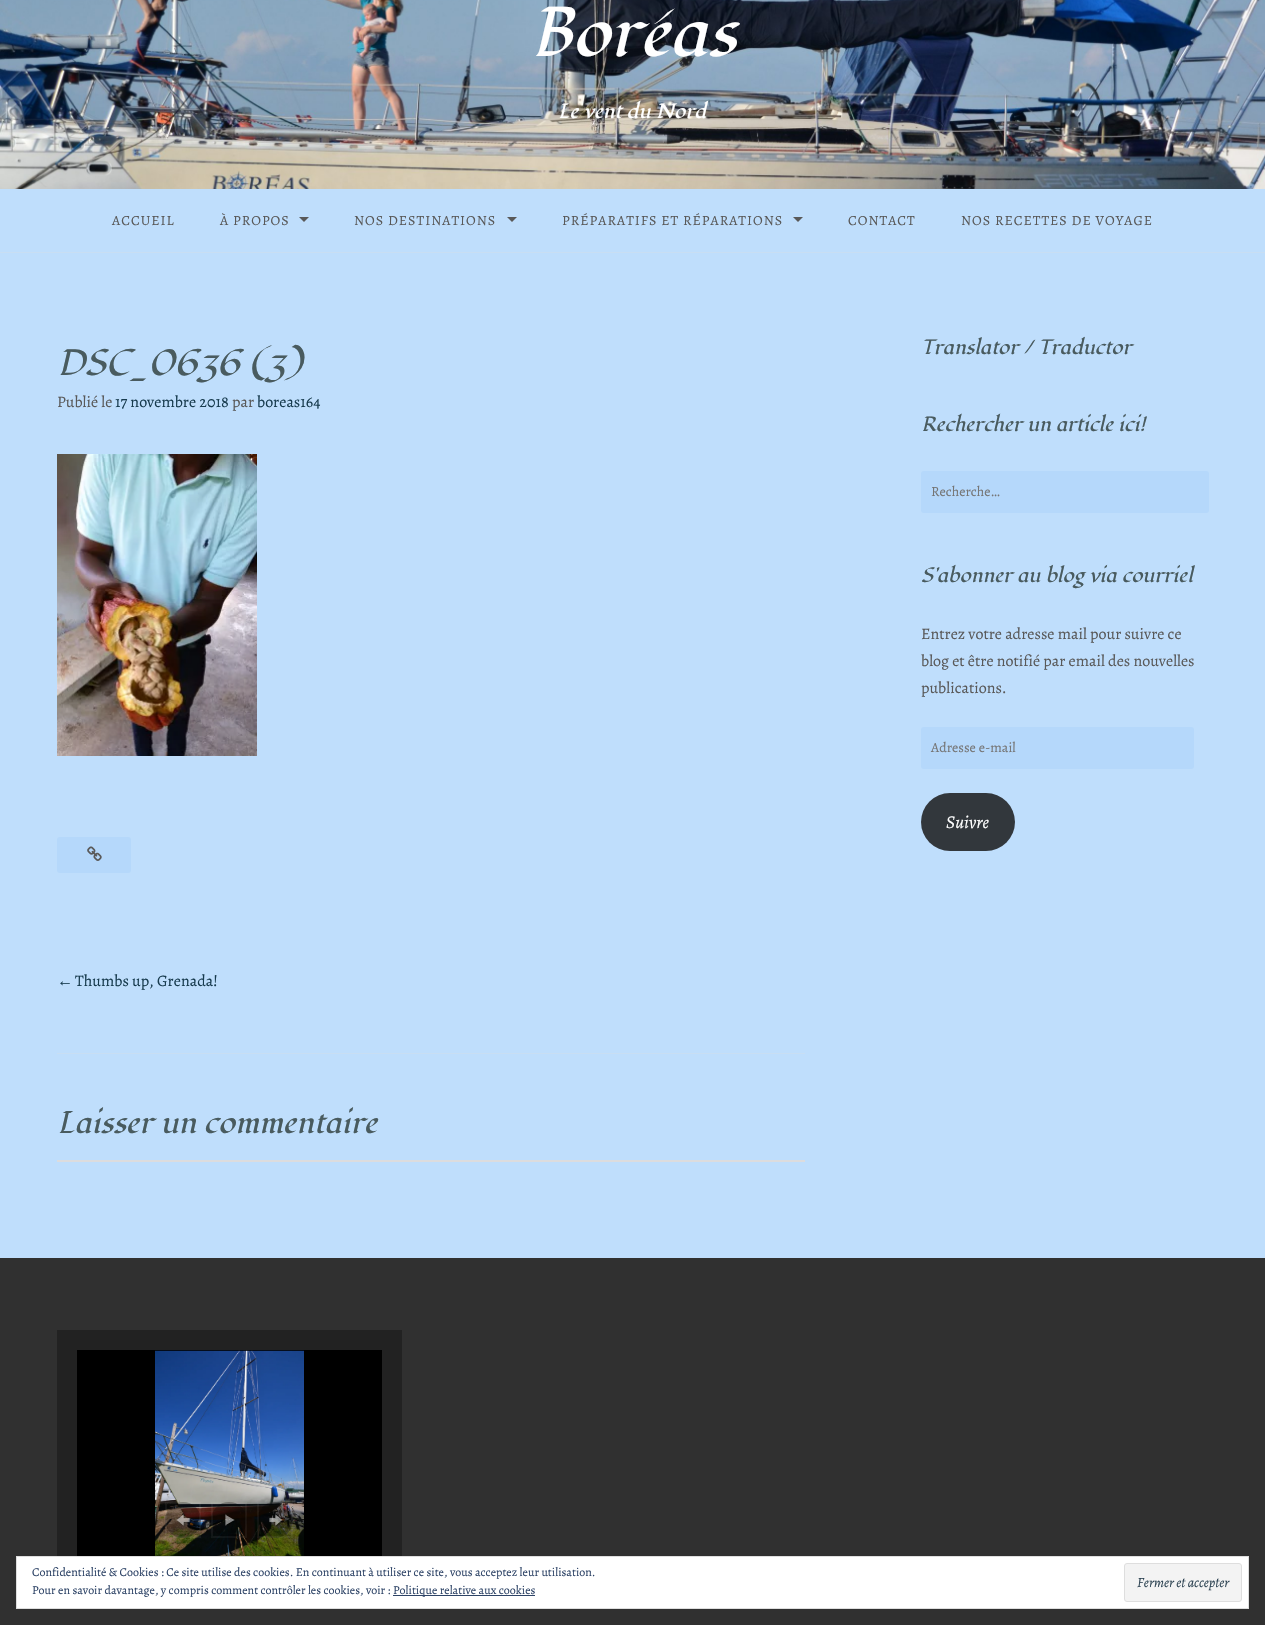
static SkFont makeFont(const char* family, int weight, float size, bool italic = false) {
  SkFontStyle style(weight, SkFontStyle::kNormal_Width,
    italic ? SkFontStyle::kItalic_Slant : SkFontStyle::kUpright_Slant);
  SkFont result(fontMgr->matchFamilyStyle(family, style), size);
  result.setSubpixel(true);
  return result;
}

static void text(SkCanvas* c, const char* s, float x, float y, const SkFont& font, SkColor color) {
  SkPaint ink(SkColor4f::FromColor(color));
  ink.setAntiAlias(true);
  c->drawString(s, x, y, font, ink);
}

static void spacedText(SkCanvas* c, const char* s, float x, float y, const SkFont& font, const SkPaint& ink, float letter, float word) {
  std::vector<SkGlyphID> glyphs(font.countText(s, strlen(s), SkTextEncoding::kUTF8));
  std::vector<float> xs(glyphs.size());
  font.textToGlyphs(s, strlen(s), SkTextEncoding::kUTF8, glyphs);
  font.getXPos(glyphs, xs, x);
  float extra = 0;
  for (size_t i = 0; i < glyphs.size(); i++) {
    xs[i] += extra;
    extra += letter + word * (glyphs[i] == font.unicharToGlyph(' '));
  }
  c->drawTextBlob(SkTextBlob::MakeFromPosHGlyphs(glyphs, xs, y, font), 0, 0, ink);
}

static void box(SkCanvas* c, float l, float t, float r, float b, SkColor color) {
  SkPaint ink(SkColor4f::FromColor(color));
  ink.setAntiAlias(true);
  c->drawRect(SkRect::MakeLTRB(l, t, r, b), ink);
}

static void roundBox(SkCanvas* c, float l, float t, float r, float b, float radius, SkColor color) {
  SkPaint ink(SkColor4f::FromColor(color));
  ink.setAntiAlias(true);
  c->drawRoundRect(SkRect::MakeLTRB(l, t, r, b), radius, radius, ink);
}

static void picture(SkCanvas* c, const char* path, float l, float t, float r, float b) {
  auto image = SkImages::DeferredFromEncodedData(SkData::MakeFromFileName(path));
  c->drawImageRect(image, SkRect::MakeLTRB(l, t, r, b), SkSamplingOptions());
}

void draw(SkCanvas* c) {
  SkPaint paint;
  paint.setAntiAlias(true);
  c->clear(0xffbfdefc);
  picture(c, "img_01.png", 0, 0, 1265, 189);
  SkFont face1 = makeFont("Fondamento", 400, 70, true);
  text(c, "Boréas", 529, 56, face1, 0xffffffff);
  SkFont face2 = makeFont("Fondamento", 400, 20.75f, true);
  text(c, "Le vent du Nord", 558, 118, face2, 0xffffffff);
  box(c, 0, 252, 1265, 253, 0xffc8def3);
  SkFont face3 = makeFont("Alegreya", 400, 14);
  paint.setColor(0xff595959);
  spacedText(c, "ACCUEIL", 112, 225, face3, paint, 1, 0);
  spacedText(c, "À PROPOS", 220, 225, face3, paint, 1, 0);
  c->drawPath(SkPathBuilder().moveTo(299, 217).lineTo(309, 217).lineTo(304, 222).close().detach(), paint);
  spacedText(c, "NOS DESTINATIONS", 354, 225, face3, paint, 1, 0);
  c->drawPath(SkPathBuilder().moveTo(507, 217).lineTo(517, 217).lineTo(512, 222).close().detach(), paint);
  spacedText(c, "PRÉPARATIFS ET RÉPARATIONS", 562, 225, face3, paint, 1, 0);
  c->drawPath(SkPathBuilder().moveTo(793, 217).lineTo(803, 217).lineTo(798, 222).close().detach(), paint);
  spacedText(c, "CONTACT", 848, 225, face3, paint, 1, 0);
  spacedText(c, "NOS RECETTES DE VOYAGE", 961, 225, face3, paint, 1, 0);
  SkFont face4 = makeFont("Fondamento", 400, 36.5f, true);
  text(c, "DSC_0636 (3)", 57, 375, face4, 0xff495b5f);
  SkFont face5 = makeFont("Alegreya", 400, 16);
  text(c, "Publié le", 57, 407, face5, 0xff595959);
  text(c, "17 novembre 2018", 115, 407, face5, 0xff173b4e);
  text(c, "par", 232, 407, face5, 0xff595959);
  text(c, "boreas164", 257, 407, face5, 0xff173b4e);
  picture(c, "img_02.png", 57, 454, 257, 756);
  roundBox(c, 57, 837, 131, 873, 3, 0xffb5d8fb);
  picture(c, "img_03.png", 87, 846, 102, 861);
  SkFont face6 = makeFont("Liberation Serif", 400, 16);
  text(c, "←", 57, 986, face6, 0xff173b4e);
  text(c, "Thumbs up, Grenada!", 75, 986, face5, 0xff173b4e);
  box(c, 57, 1053, 805, 1054, 0xffc8def3);
  SkFont face7 = makeFont("Fondamento", 400, 31.25f, true);
  text(c, "Laisser un commentaire", 57, 1133, face7, 0xff495b5f);
  box(c, 57, 1160, 805, 1162, 0xffdcdcde);
  text(c, "Translator / Traductor", 921, 354, face2, 0xff495b5f);
  text(c, "Rechercher un article ici!", 921, 431, face2, 0xff495b5f);
  roundBox(c, 921, 471, 1209, 513, 3, 0xffb5d8fb);
  text(c, "Recherche…", 931, 496, face3, 0xff757575);
  text(c, "S'abonner au blog via courriel", 921, 582, face2, 0xff495b5f);
  text(c, "Entrez votre adresse mail pour suivre ce", 921, 639, face5, 0xff595959);
  text(c, "blog et être notifié par email des nouvelles", 921, 666, face5, 0xff595959);
  text(c, "publications.", 921, 693, face5, 0xff595959);
  roundBox(c, 921, 727, 1194, 769, 3, 0xffb5d8fb);
  text(c, "Adresse e-mail", 931, 752, face3, 0xff757575);
  roundBox(c, 921, 793, 1015, 851, 29, 0xff32373c);
  SkFont face8 = makeFont("Alegreya", 400, 18, true);
  text(c, "Suivre", 946, 828, face8, 0xffffffff);
  box(c, 0, 1258, 1265, 1625, 0xff303030);
  paint.setStyle(SkPaint::kStroke_Style);
  paint.setStrokeWidth(20);
  paint.setColor(0xff222222);
  c->drawRect(SkRect::MakeLTRB(67, 1340, 392, 1585), paint);
  box(c, 77, 1350, 382, 1556, 0xff000000);
  picture(c, "img_04.png", 155, 1350, 304, 1556);
  paint.setStyle(SkPaint::kFill_Style);
  paint.setColor(0x4d000000);
  c->drawCircle(183, 1520, 18, paint);
  picture(c, "img_05.png", 176, 1514, 191, 1527);
  paint.setStyle(SkPaint::kStroke_Style);
  paint.setStrokeWidth(2);
  paint.setColor(0x0dffffff);
  c->drawRect(SkRect::MakeLTRB(166, 1503, 200, 1537), paint);
  paint.setStyle(SkPaint::kFill_Style);
  paint.setColor(0x4d000000);
  c->drawCircle(229, 1520, 18, paint);
  picture(c, "img_06.png", 225, 1514, 235, 1526);
  paint.setStyle(SkPaint::kStroke_Style);
  paint.setColor(0x0dffffff);
  c->drawRect(SkRect::MakeLTRB(212, 1503, 246, 1537), paint);
  paint.setStyle(SkPaint::kFill_Style);
  paint.setColor(0x4d000000);
  c->drawCircle(275, 1520, 18, paint);
  picture(c, "img_07.png", 269, 1514, 283, 1527);
  paint.setStyle(SkPaint::kStroke_Style);
  paint.setColor(0x0dffffff);
  c->drawRect(SkRect::MakeLTRB(258, 1503, 292, 1537), paint);
  paint.setStyle(SkPaint::kFill_Style);
  paint.setColor(0xffffffff);
  c->drawRect(SkRect::MakeLTRB(16.5f, 1556.5f, 1248.5f, 1608.5f), paint);
  paint.setStyle(SkPaint::kStroke_Style);
  paint.setStrokeWidth(1);
  paint.setColor(0xffdedede);
  c->drawRect(SkRect::MakeLTRB(16.5f, 1556.5f, 1248.5f, 1608.5f), paint);
  SkFont face9 = makeFont("Alegreya", 400, 12);
  text(c, "Confidentialité & Cookies : Ce site utilise des cookies. En continuant à utiliser ce site, vous acceptez leur utilisation.", 32, 1576, face9, 0xff2e4467);
  text(c, "Pour en savoir davantage, y compris comment contrôler les cookies, voir :", 32, 1594, face9, 0xff2e4467);
  box(c, 393, 1595, 535, 1596, 0xff2e4467);
  text(c, "Politique relative aux cookies", 393, 1594, face9, 0xff2e4467);
  paint.setStyle(SkPaint::kFill_Style);
  paint.setColor(0xfff3f3f3);
  c->drawRoundRect(SkRect::MakeLTRB(1124.5f, 1563.5f, 1241.5f, 1601.5f), 2.5f, 2.5f, paint);
  paint.setStyle(SkPaint::kStroke_Style);
  paint.setColor(0xffdedede);
  c->drawRoundRect(SkRect::MakeLTRB(1124.5f, 1563.5f, 1241.5f, 1601.5f), 2.5f, 2.5f, paint);
  SkFont face10 = makeFont("Alegreya", 400, 14, true);
  text(c, "Fermer et accepter", 1137, 1587, face10, 0xff2e4453);
}
